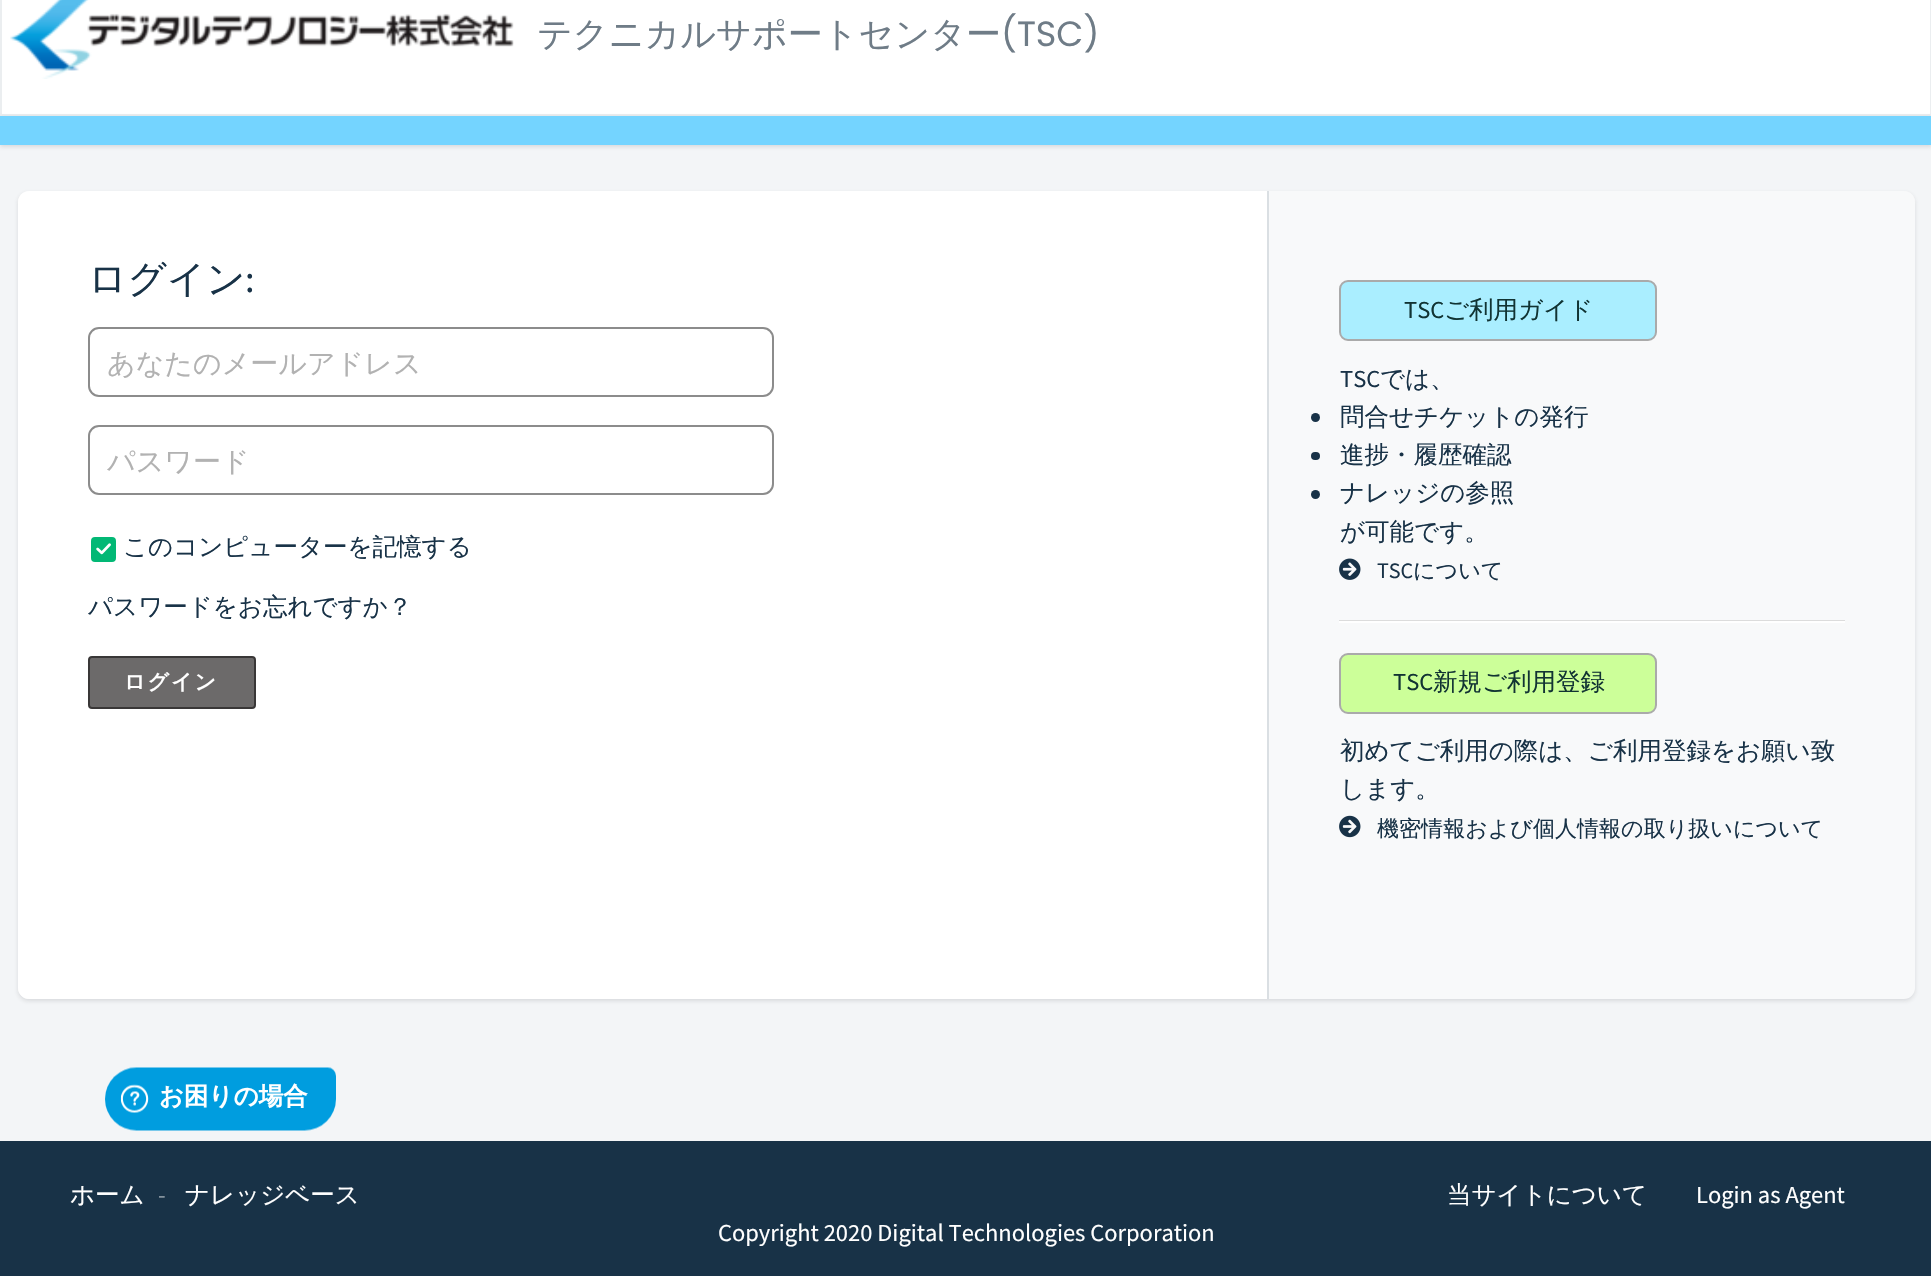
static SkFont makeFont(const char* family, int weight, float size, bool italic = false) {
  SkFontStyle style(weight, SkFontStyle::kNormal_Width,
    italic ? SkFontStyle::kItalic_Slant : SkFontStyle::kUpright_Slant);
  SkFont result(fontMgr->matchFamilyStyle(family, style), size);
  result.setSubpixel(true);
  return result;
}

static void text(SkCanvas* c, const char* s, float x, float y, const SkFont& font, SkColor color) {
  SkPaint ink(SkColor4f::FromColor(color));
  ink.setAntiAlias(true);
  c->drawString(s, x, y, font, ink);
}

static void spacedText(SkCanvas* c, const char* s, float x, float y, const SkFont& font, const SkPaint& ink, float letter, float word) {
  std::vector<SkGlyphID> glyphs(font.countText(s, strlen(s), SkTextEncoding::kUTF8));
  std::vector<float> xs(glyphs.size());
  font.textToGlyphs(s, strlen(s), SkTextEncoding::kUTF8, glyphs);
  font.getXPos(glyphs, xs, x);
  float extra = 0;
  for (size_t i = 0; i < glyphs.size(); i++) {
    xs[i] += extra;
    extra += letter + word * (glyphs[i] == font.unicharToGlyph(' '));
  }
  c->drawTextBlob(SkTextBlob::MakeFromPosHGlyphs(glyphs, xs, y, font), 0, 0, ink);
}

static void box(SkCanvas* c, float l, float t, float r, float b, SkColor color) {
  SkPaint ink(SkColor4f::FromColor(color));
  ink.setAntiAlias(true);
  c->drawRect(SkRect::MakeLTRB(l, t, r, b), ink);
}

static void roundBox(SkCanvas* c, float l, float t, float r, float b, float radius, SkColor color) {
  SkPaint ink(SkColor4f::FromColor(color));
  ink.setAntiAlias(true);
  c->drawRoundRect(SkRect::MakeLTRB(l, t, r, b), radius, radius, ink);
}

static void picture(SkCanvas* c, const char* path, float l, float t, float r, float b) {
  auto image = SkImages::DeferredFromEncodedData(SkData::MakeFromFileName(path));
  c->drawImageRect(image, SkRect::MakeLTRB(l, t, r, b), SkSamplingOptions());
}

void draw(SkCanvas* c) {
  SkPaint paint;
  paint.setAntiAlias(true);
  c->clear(0xfff3f5f7);
  paint.setColor(0xffffffff);
  c->drawRect(SkRect::MakeLTRB(1, -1, 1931, 115), paint);
  paint.setStyle(SkPaint::kStroke_Style);
  paint.setStrokeWidth(2);
  paint.setColor(0xffebeef0);
  c->drawRect(SkRect::MakeLTRB(1, -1, 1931, 115), paint);
  picture(c, "img_01.png", 10, 0, 514, 79);
  SkFont face1 = makeFont("WenQuanYi Zen Hei", 500, 35);
  text(c, "テクニカルサポートセンター", 537, 46, face1, 0xff6f7c87);
  SkFont face2 = makeFont("Poppins", 400, 35);
  text(c, "(TSC)", 1001, 46, face2, 0xff6f7c87);
  paint.setStyle(SkPaint::kFill_Style);
  paint.setColor(0x263f3f44);
  paint.setMaskFilter(SkMaskFilter::MakeBlur(kNormal_SkBlurStyle, 2));
  c->drawRect(SkRect::MakeLTRB(0, 117, 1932, 147), paint);
  paint.setMaskFilter(nullptr);
  box(c, 0, 116, 1931, 145, 0xff74d4ff);
  paint.setMaskFilter(SkMaskFilter::MakeBlur(kNormal_SkBlurStyle, 2));
  c->drawRoundRect(SkRect::MakeLTRB(18, 193, 1915, 1001), 11, 11, paint);
  paint.setMaskFilter(nullptr);
  roundBox(c, 18, 191, 1915, 999, 11, 0xfff8f9fa);
  paint.setColor(0xffffffff);
  c->drawPath(SkPathBuilder().moveTo(29, 191).lineTo(1269, 191).lineTo(1269, 999).lineTo(29, 999).cubicTo(23, 999, 18, 994, 18, 988).lineTo(18, 202).cubicTo(18, 196, 23, 191, 29, 191).close().detach(), paint);
  box(c, 1267, 191, 1269, 999, 0xffdadfe3);
  SkFont face3 = makeFont("WenQuanYi Zen Hei", 500, 38.5f);
  text(c, "ログイン", 88, 292, face3, 0xff183247);
  SkFont face4 = makeFont("Source Sans Pro", 400, 38.5f);
  text(c, ":", 245, 292, face4, 0xff183247);
  paint.setStyle(SkPaint::kStroke_Style);
  paint.setColor(0xff8c8c8c);
  c->drawRoundRect(SkRect::MakeLTRB(89, 328, 773, 396), 10, 10, paint);
  SkFont face5 = makeFont("WenQuanYi Zen Hei", 500, 28);
  text(c, "あなたのメールアドレス", 107, 373, face5, 0xffb2b2b2);
  c->drawRoundRect(SkRect::MakeLTRB(89, 426, 773, 494), 10, 10, paint);
  text(c, "パスワード", 107, 471, face5, 0xffb2b2b2);
  paint.setStyle(SkPaint::kFill_Style);
  paint.setColor(0xff02b875);
  c->drawRoundRect(SkRect::MakeLTRB(92, 538, 115, 561), 3, 3, paint);
  paint.setStyle(SkPaint::kStroke_Style);
  c->drawRoundRect(SkRect::MakeLTRB(92, 538, 115, 561), 3, 3, paint);
  picture(c, "img_02.png", 96, 543, 111, 555);
  SkFont face6 = makeFont("WenQuanYi Zen Hei", 500, 24.5f);
  text(c, "このコンピューターを記憶する", 123, 555, face6, 0xff183247);
  text(c, "パスワードをお忘れですか？", 88, 615, face6, 0xff183247);
  paint.setStyle(SkPaint::kFill_Style);
  paint.setColor(0xff6c6a6a);
  c->drawRoundRect(SkRect::MakeLTRB(89, 657, 255, 708), 3, 3, paint);
  paint.setStyle(SkPaint::kStroke_Style);
  paint.setColor(0xff393737);
  c->drawRoundRect(SkRect::MakeLTRB(89, 657, 255, 708), 3, 3, paint);
  SkFont face7 = makeFont("WenQuanYi Zen Hei", 700, 21);
  paint.setStyle(SkPaint::kFill_Style);
  paint.setColor(0xffffffff);
  spacedText(c, "ログイン", 124, 689, face7, paint, 2, 0);
  paint.setColor(0xfff8f9fa);
  c->drawPath(SkPathBuilder().moveTo(1269, 191).lineTo(1904, 191).cubicTo(1910, 191, 1915, 196, 1915, 202).lineTo(1915, 925).cubicTo(1915, 931, 1910, 936, 1904, 936).lineTo(1269, 936).close().detach(), paint);
  paint.setColor(0xffaaeeff);
  c->drawRoundRect(SkRect::MakeLTRB(1340, 281, 1656, 340), 8, 8, paint);
  paint.setStyle(SkPaint::kStroke_Style);
  paint.setColor(0xffaaaaaa);
  c->drawRoundRect(SkRect::MakeLTRB(1340, 281, 1656, 340), 8, 8, paint);
  SkFont face8 = makeFont("Source Sans Pro", 400, 24.5f);
  text(c, "TSC", 1404, 318, face8, 0xff113333);
  text(c, "ご利用ガイド", 1444, 318, face6, 0xff113333);
  text(c, "TSC", 1340, 387, face8, 0xff183247);
  text(c, "では、", 1380, 387, face6, 0xff183247);
  paint.setStyle(SkPaint::kFill_Style);
  paint.setColor(0xff183247);
  c->drawCircle(1315.5f, 417.5f, 4.5f, paint);
  text(c, "問合せチケットの発行", 1340, 425, face6, 0xff183247);
  roundBox(c, 1311, 452, 1320, 460, 4, 0xff183247);
  text(c, "進捗・履歴確認", 1340, 463, face6, 0xff183247);
  c->drawCircle(1315.5f, 494.5f, 4.5f, paint);
  text(c, "ナレッジの参照", 1340, 501, face6, 0xff183247);
  text(c, "が可能です。", 1340, 540, face6, 0xff183247);
  picture(c, "img_03.png", 1339, 558, 1361, 580);
  SkFont face9 = makeFont("Source Sans Pro", 400, 22.05f);
  text(c, "TSC", 1377, 578, face9, 0xff183247);
  SkFont face10 = makeFont("WenQuanYi Zen Hei", 500, 22.05f);
  text(c, "について", 1413, 578, face10, 0xff183247);
  box(c, 1339, 620, 1845, 621, 0xffdcdcdc);
  box(c, 1339, 621, 1845, 623, 0xffffffff);
  paint.setColor(0xffccff99);
  c->drawRoundRect(SkRect::MakeLTRB(1340, 654, 1656, 713), 8, 8, paint);
  paint.setStyle(SkPaint::kStroke_Style);
  paint.setColor(0xffaaaaaa);
  c->drawRoundRect(SkRect::MakeLTRB(1340, 654, 1656, 713), 8, 8, paint);
  text(c, "TSC", 1393, 690, face8, 0xff113333);
  text(c, "新規ご利用登録", 1433, 690, face6, 0xff113333);
  text(c, "初めてご利用の際は、ご利用登録をお願い致", 1340, 759, face6, 0xff183247);
  text(c, "します。", 1340, 797, face6, 0xff183247);
  picture(c, "img_04.png", 1339, 815, 1361, 838);
  text(c, "機密情報および個人情報の取り扱いについて", 1377, 836, face10, 0xff183247);
  picture(c, "img_05.png", 105, 1067, 336, 1131);
  box(c, 0, 1141, 1931, 1276, 0xff183247);
  text(c, "ホーム", 70, 1203, face6, 0xffffffff);
  text(c, "-", 158, 1203, face8, 0xff8c99a3);
  text(c, "ナレッジベース", 185, 1203, face6, 0xffffffff);
  text(c, "当サイトについて", 1447, 1203, face6, 0xffffffff);
  text(c, "Login as Agent", 1696, 1203, face8, 0xffffffff);
  text(c, "Copyright 2020 Digital Technologies Corporation", 718, 1241, face8, 0xffffffff);
}
